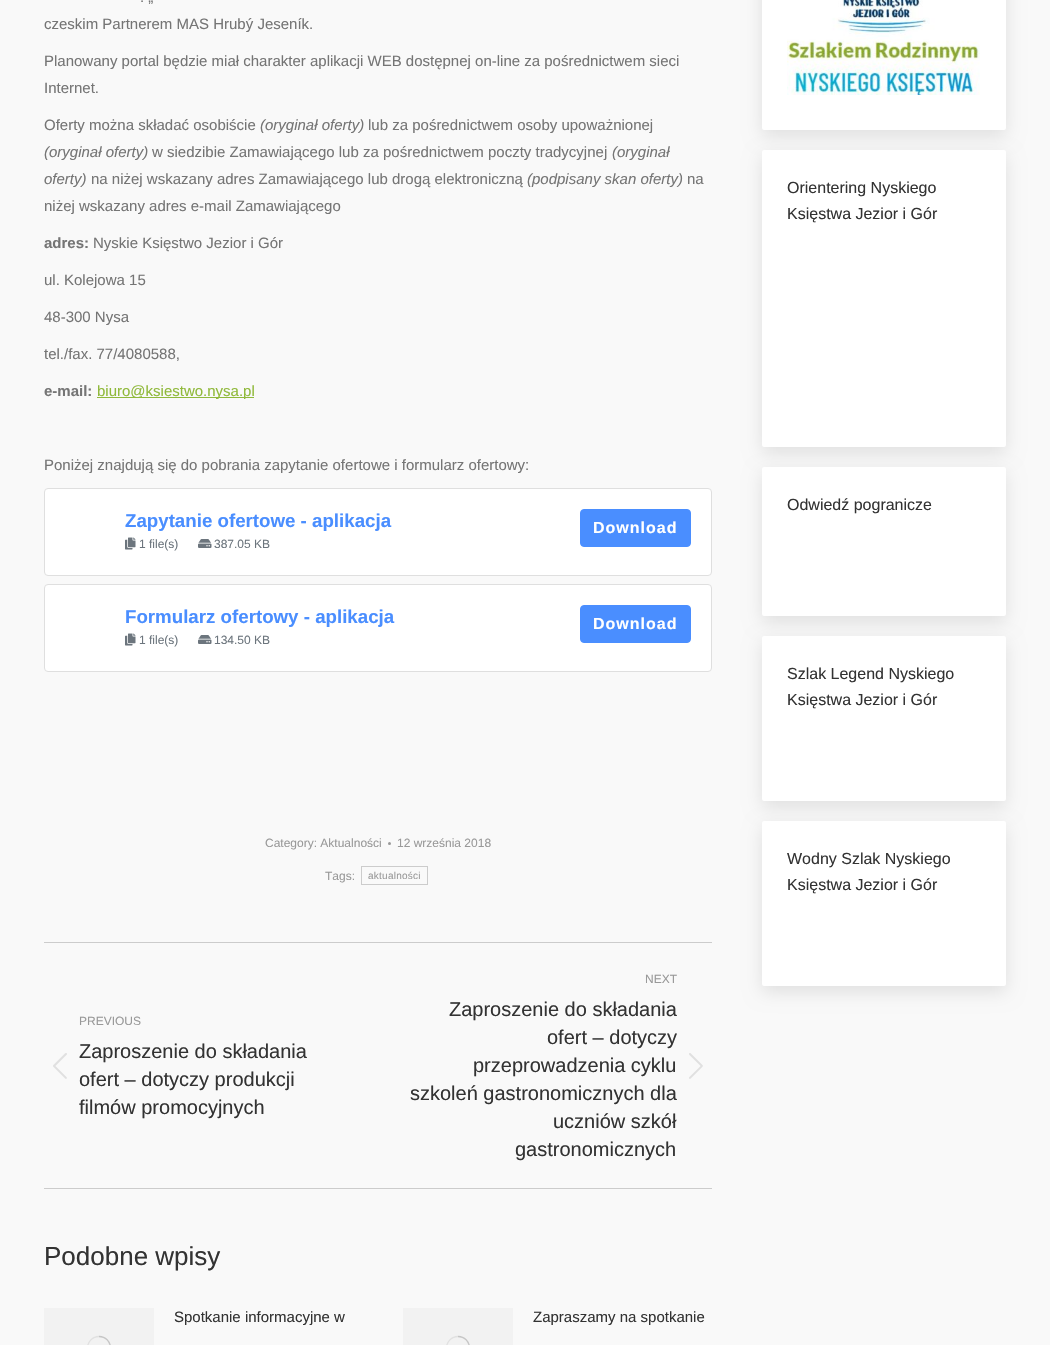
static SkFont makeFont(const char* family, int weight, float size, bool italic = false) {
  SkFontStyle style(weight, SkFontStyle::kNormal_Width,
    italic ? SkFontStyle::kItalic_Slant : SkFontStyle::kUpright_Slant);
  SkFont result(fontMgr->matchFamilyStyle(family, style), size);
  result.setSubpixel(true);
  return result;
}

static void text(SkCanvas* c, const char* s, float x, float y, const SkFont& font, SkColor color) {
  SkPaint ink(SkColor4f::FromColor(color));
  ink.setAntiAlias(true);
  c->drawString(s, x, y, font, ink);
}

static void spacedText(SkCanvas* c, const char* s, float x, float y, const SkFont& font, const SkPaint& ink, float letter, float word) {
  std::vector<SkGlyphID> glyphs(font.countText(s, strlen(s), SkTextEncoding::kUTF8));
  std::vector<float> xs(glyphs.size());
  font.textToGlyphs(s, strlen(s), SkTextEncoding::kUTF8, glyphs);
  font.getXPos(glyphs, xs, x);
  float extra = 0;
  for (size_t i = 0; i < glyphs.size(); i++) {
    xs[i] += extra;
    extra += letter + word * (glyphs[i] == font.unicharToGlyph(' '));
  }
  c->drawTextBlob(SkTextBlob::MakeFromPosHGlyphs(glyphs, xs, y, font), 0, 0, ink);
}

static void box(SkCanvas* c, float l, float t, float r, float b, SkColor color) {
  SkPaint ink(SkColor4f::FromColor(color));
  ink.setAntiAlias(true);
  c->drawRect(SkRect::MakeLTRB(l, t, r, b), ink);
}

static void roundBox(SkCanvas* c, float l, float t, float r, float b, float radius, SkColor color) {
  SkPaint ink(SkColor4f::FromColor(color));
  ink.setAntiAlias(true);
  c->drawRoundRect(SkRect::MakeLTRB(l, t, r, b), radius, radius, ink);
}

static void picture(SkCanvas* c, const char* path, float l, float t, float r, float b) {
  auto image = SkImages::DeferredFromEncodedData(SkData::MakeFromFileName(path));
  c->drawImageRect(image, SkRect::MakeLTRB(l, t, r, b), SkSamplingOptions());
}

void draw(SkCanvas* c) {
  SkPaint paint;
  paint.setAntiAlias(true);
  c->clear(0xfff9f9f9);
  SkFont face1 = makeFont("Liberation Sans", 400, 15);
  text(c, ". „", 140, 2, face1, 0xff757575);
  text(c, "czeskim Partnerem MAS Hrubý Jeseník.", 44, 29, face1, 0xff757575);
  text(c, "Planowany portal będzie miał charakter aplikacji WEB dostępnej on-line za pośrednictwem sieci", 44, 66, face1, 0xff757575);
  text(c, "Internet.", 44, 93, face1, 0xff757575);
  text(c, "Oferty można składać osobiście", 44, 130, face1, 0xff757575);
  SkFont face2 = makeFont("Liberation Sans", 400, 15, true);
  text(c, "(oryginał oferty)", 260, 130, face2, 0xff757575);
  text(c, "lub za pośrednictwem osoby upoważnionej", 368, 130, face1, 0xff757575);
  text(c, "(oryginał oferty)", 44, 157, face2, 0xff757575);
  text(c, "w siedzibie Zamawiającego lub za pośrednictwem poczty tradycyjnej", 152, 157, face1, 0xff757575);
  text(c, "(oryginał", 612, 157, face2, 0xff757575);
  text(c, "oferty)", 44, 184, face2, 0xff757575);
  text(c, "na niżej wskazany adres Zamawiającego lub drogą elektroniczną", 91, 184, face1, 0xff757575);
  text(c, "(podpisany skan oferty)", 527, 184, face2, 0xff757575);
  text(c, "na", 687, 184, face1, 0xff757575);
  text(c, "niżej wskazany adres e-mail Zamawiającego", 44, 211, face1, 0xff757575);
  SkFont face3 = makeFont("Liberation Sans", 700, 15);
  text(c, "adres:", 44, 248, face3, 0xff757575);
  text(c, "Nyskie Księstwo Jezior i Gór", 93, 248, face1, 0xff757575);
  text(c, "ul. Kolejowa 15", 44, 285, face1, 0xff757575);
  text(c, "48-300 Nysa", 44, 322, face1, 0xff757575);
  text(c, "tel./fax. 77/4080588,", 44, 359, face1, 0xff757575);
  text(c, "e-mail:", 44, 396, face3, 0xff757575);
  box(c, 97, 397, 254, 398, 0xff90b93b);
  text(c, "biuro@ksiestwo.nysa.pl", 97, 396, face1, 0xff90b93b);
  text(c, "Poniżej znajdują się do pobrania zapytanie ofertowe i formularz ofertowy:", 44, 470, face1, 0xff757575);
  paint.setColor(0xffffffff);
  c->drawRoundRect(SkRect::MakeLTRB(44.5f, 488.5f, 711.5f, 575.5f), 3.5f, 3.5f, paint);
  paint.setStyle(SkPaint::kStroke_Style);
  paint.setStrokeWidth(1);
  paint.setColor(0xffdfdfdf);
  c->drawRoundRect(SkRect::MakeLTRB(44.5f, 488.5f, 711.5f, 575.5f), 3.5f, 3.5f, paint);
  SkFont face4 = makeFont("Liberation Sans", 700, 18.7f);
  text(c, "Zapytanie ofertowe - aplikacja", 125, 527, face4, 0xff4a8eff);
  picture(c, "img_01.png", 125, 537, 136, 550);
  SkFont face5 = makeFont("Liberation Sans", 400, 12);
  text(c, "1 file(s)", 139, 548, face5, 0xff6c757d);
  picture(c, "img_02.png", 198, 539, 212, 548);
  text(c, "387.05 KB", 214, 548, face5, 0xff6c757d);
  paint.setStyle(SkPaint::kFill_Style);
  paint.setColor(0xff4a8eff);
  c->drawRoundRect(SkRect::MakeLTRB(580.5f, 509.5f, 690.5f, 546.5f), 3.5f, 3.5f, paint);
  paint.setStyle(SkPaint::kStroke_Style);
  c->drawRoundRect(SkRect::MakeLTRB(580.5f, 509.5f, 690.5f, 546.5f), 3.5f, 3.5f, paint);
  SkFont face6 = makeFont("Liberation Sans", 700, 16);
  paint.setStyle(SkPaint::kFill_Style);
  paint.setColor(0xffffffff);
  spacedText(c, "Download", 593, 533, face6, paint, 1, 0);
  c->drawRoundRect(SkRect::MakeLTRB(44.5f, 584.5f, 711.5f, 671.5f), 3.5f, 3.5f, paint);
  paint.setStyle(SkPaint::kStroke_Style);
  paint.setColor(0xffdfdfdf);
  c->drawRoundRect(SkRect::MakeLTRB(44.5f, 584.5f, 711.5f, 671.5f), 3.5f, 3.5f, paint);
  text(c, "Formularz ofertowy - aplikacja", 125, 623, face4, 0xff4a8eff);
  picture(c, "img_01.png", 125, 633, 136, 646);
  text(c, "1 file(s)", 139, 644, face5, 0xff6c757d);
  picture(c, "img_02.png", 198, 635, 212, 644);
  text(c, "134.50 KB", 214, 644, face5, 0xff6c757d);
  paint.setStyle(SkPaint::kFill_Style);
  paint.setColor(0xff4a8eff);
  c->drawRoundRect(SkRect::MakeLTRB(580.5f, 605.5f, 690.5f, 642.5f), 3.5f, 3.5f, paint);
  paint.setStyle(SkPaint::kStroke_Style);
  c->drawRoundRect(SkRect::MakeLTRB(580.5f, 605.5f, 690.5f, 642.5f), 3.5f, 3.5f, paint);
  paint.setStyle(SkPaint::kFill_Style);
  paint.setColor(0xffffffff);
  spacedText(c, "Download", 593, 629, face6, paint, 1, 0);
  text(c, "Category: Aktualności", 265, 847, face5, 0xff999999);
  paint.setColor(0xff999999);
  c->drawCircle(389.5f, 843.5f, 1.5f, paint);
  text(c, "12 września 2018", 397, 847, face5, 0xff999999);
  text(c, "Tags:", 325, 880, face5, 0xff999999);
  paint.setStyle(SkPaint::kStroke_Style);
  paint.setColor(0xffcccccc);
  c->drawRect(SkRect::MakeLTRB(361.5f, 866.5f, 427.5f, 884.5f), paint);
  SkFont face7 = makeFont("Liberation Sans", 400, 10);
  paint.setStyle(SkPaint::kFill_Style);
  paint.setColor(0xff999999);
  spacedText(c, "aktualności", 368, 879, face7, paint, 0.25f, 0);
  box(c, 44, 942, 712, 943, 0xffcccccc);
  box(c, 44, 1188, 712, 1189, 0xffcccccc);
  text(c, "PREVIOUS", 79, 1025, face5, 0xff999999);
  picture(c, "img_03.png", 53, 1053, 67, 1079);
  SkFont face8 = makeFont("Liberation Sans", 400, 20);
  text(c, "Zaproszenie do składania", 79, 1058, face8, 0xff333333);
  text(c, "ofert – dotyczy produkcji", 79, 1086, face8, 0xff333333);
  text(c, "filmów promocyjnych", 79, 1114, face8, 0xff333333);
  text(c, "NEXT", 645, 983, face5, 0xff999999);
  text(c, "Zaproszenie do składania", 449, 1016, face8, 0xff333333);
  text(c, "ofert – dotyczy", 547, 1044, face8, 0xff333333);
  text(c, "przeprowadzenia cyklu", 473, 1072, face8, 0xff333333);
  text(c, "szkoleń gastronomicznych dla", 410, 1100, face8, 0xff333333);
  text(c, "uczniów szkół", 553, 1128, face8, 0xff333333);
  text(c, "gastronomicznych", 515, 1156, face8, 0xff333333);
  picture(c, "img_04.png", 689, 1053, 703, 1079);
  SkFont face9 = makeFont("Liberation Sans", 400, 26);
  text(c, "Podobne wpisy", 44, 1265, face9, 0xff333333);
  box(c, 44, 1308, 154, 1345, 0xfff2f2f2);
  paint.setStyle(SkPaint::kStroke_Style);
  paint.setStrokeWidth(1.3f);
  paint.setColor(0xffe1e1e1);
  c->drawCircle(99, 1348, 11.5f, paint);
  paint.setColor(0x40757575);
  c->drawPath(SkPathBuilder().moveTo(110.5f, 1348).cubicTo(110.5f, 1341.5f, 105.5f, 1336.5f, 99, 1336.5f).detach(), paint);
  text(c, "Spotkanie informacyjne w", 174, 1322, face1, 0xff333333);
  box(c, 403, 1308, 513, 1345, 0xfff2f2f2);
  paint.setColor(0xffe1e1e1);
  c->drawCircle(458, 1348, 11.5f, paint);
  paint.setColor(0x40757575);
  c->drawPath(SkPathBuilder().moveTo(469.5f, 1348).cubicTo(469.5f, 1341.5f, 464.5f, 1336.5f, 458, 1336.5f).detach(), paint);
  text(c, "Zapraszamy na spotkanie", 533, 1322, face1, 0xff333333);
  paint.setStyle(SkPaint::kFill_Style);
  paint.setColor(0x1a000000);
  paint.setMaskFilter(SkMaskFilter::MakeBlur(kNormal_SkBlurStyle, 9));
  c->drawRoundRect(SkRect::MakeLTRB(762, -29, 1006, 136), 2, 2, paint);
  paint.setMaskFilter(nullptr);
  roundBox(c, 762, -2, 1006, 130, 2, 0xffffffff);
  picture(c, "img_05.png", 787, 0, 980, 95);
  paint.setMaskFilter(SkMaskFilter::MakeBlur(kNormal_SkBlurStyle, 9));
  c->drawRoundRect(SkRect::MakeLTRB(762, 156, 1006, 453), 2, 2, paint);
  paint.setMaskFilter(nullptr);
  roundBox(c, 762, 150, 1006, 447, 2, 0xffffffff);
  SkFont face10 = makeFont("Liberation Sans", 400, 16);
  text(c, "Orientering Nyskiego", 787, 193, face10, 0xff333333);
  text(c, "Księstwa Jezior i Gór", 787, 219, face10, 0xff333333);
  paint.setMaskFilter(SkMaskFilter::MakeBlur(kNormal_SkBlurStyle, 9));
  c->drawRoundRect(SkRect::MakeLTRB(762, 473, 1006, 622), 2, 2, paint);
  paint.setMaskFilter(nullptr);
  roundBox(c, 762, 467, 1006, 616, 2, 0xffffffff);
  text(c, "Odwiedź pogranicze", 787, 510, face10, 0xff333333);
  paint.setMaskFilter(SkMaskFilter::MakeBlur(kNormal_SkBlurStyle, 9));
  c->drawRoundRect(SkRect::MakeLTRB(762, 642, 1006, 807), 2, 2, paint);
  paint.setMaskFilter(nullptr);
  roundBox(c, 762, 636, 1006, 801, 2, 0xffffffff);
  text(c, "Szlak Legend Nyskiego", 787, 679, face10, 0xff333333);
  text(c, "Księstwa Jezior i Gór", 787, 705, face10, 0xff333333);
  paint.setMaskFilter(SkMaskFilter::MakeBlur(kNormal_SkBlurStyle, 9));
  c->drawRoundRect(SkRect::MakeLTRB(762, 827, 1006, 992), 2, 2, paint);
  paint.setMaskFilter(nullptr);
  roundBox(c, 762, 821, 1006, 986, 2, 0xffffffff);
  text(c, "Wodny Szlak Nyskiego", 787, 864, face10, 0xff333333);
  text(c, "Księstwa Jezior i Gór", 787, 890, face10, 0xff333333);
}
